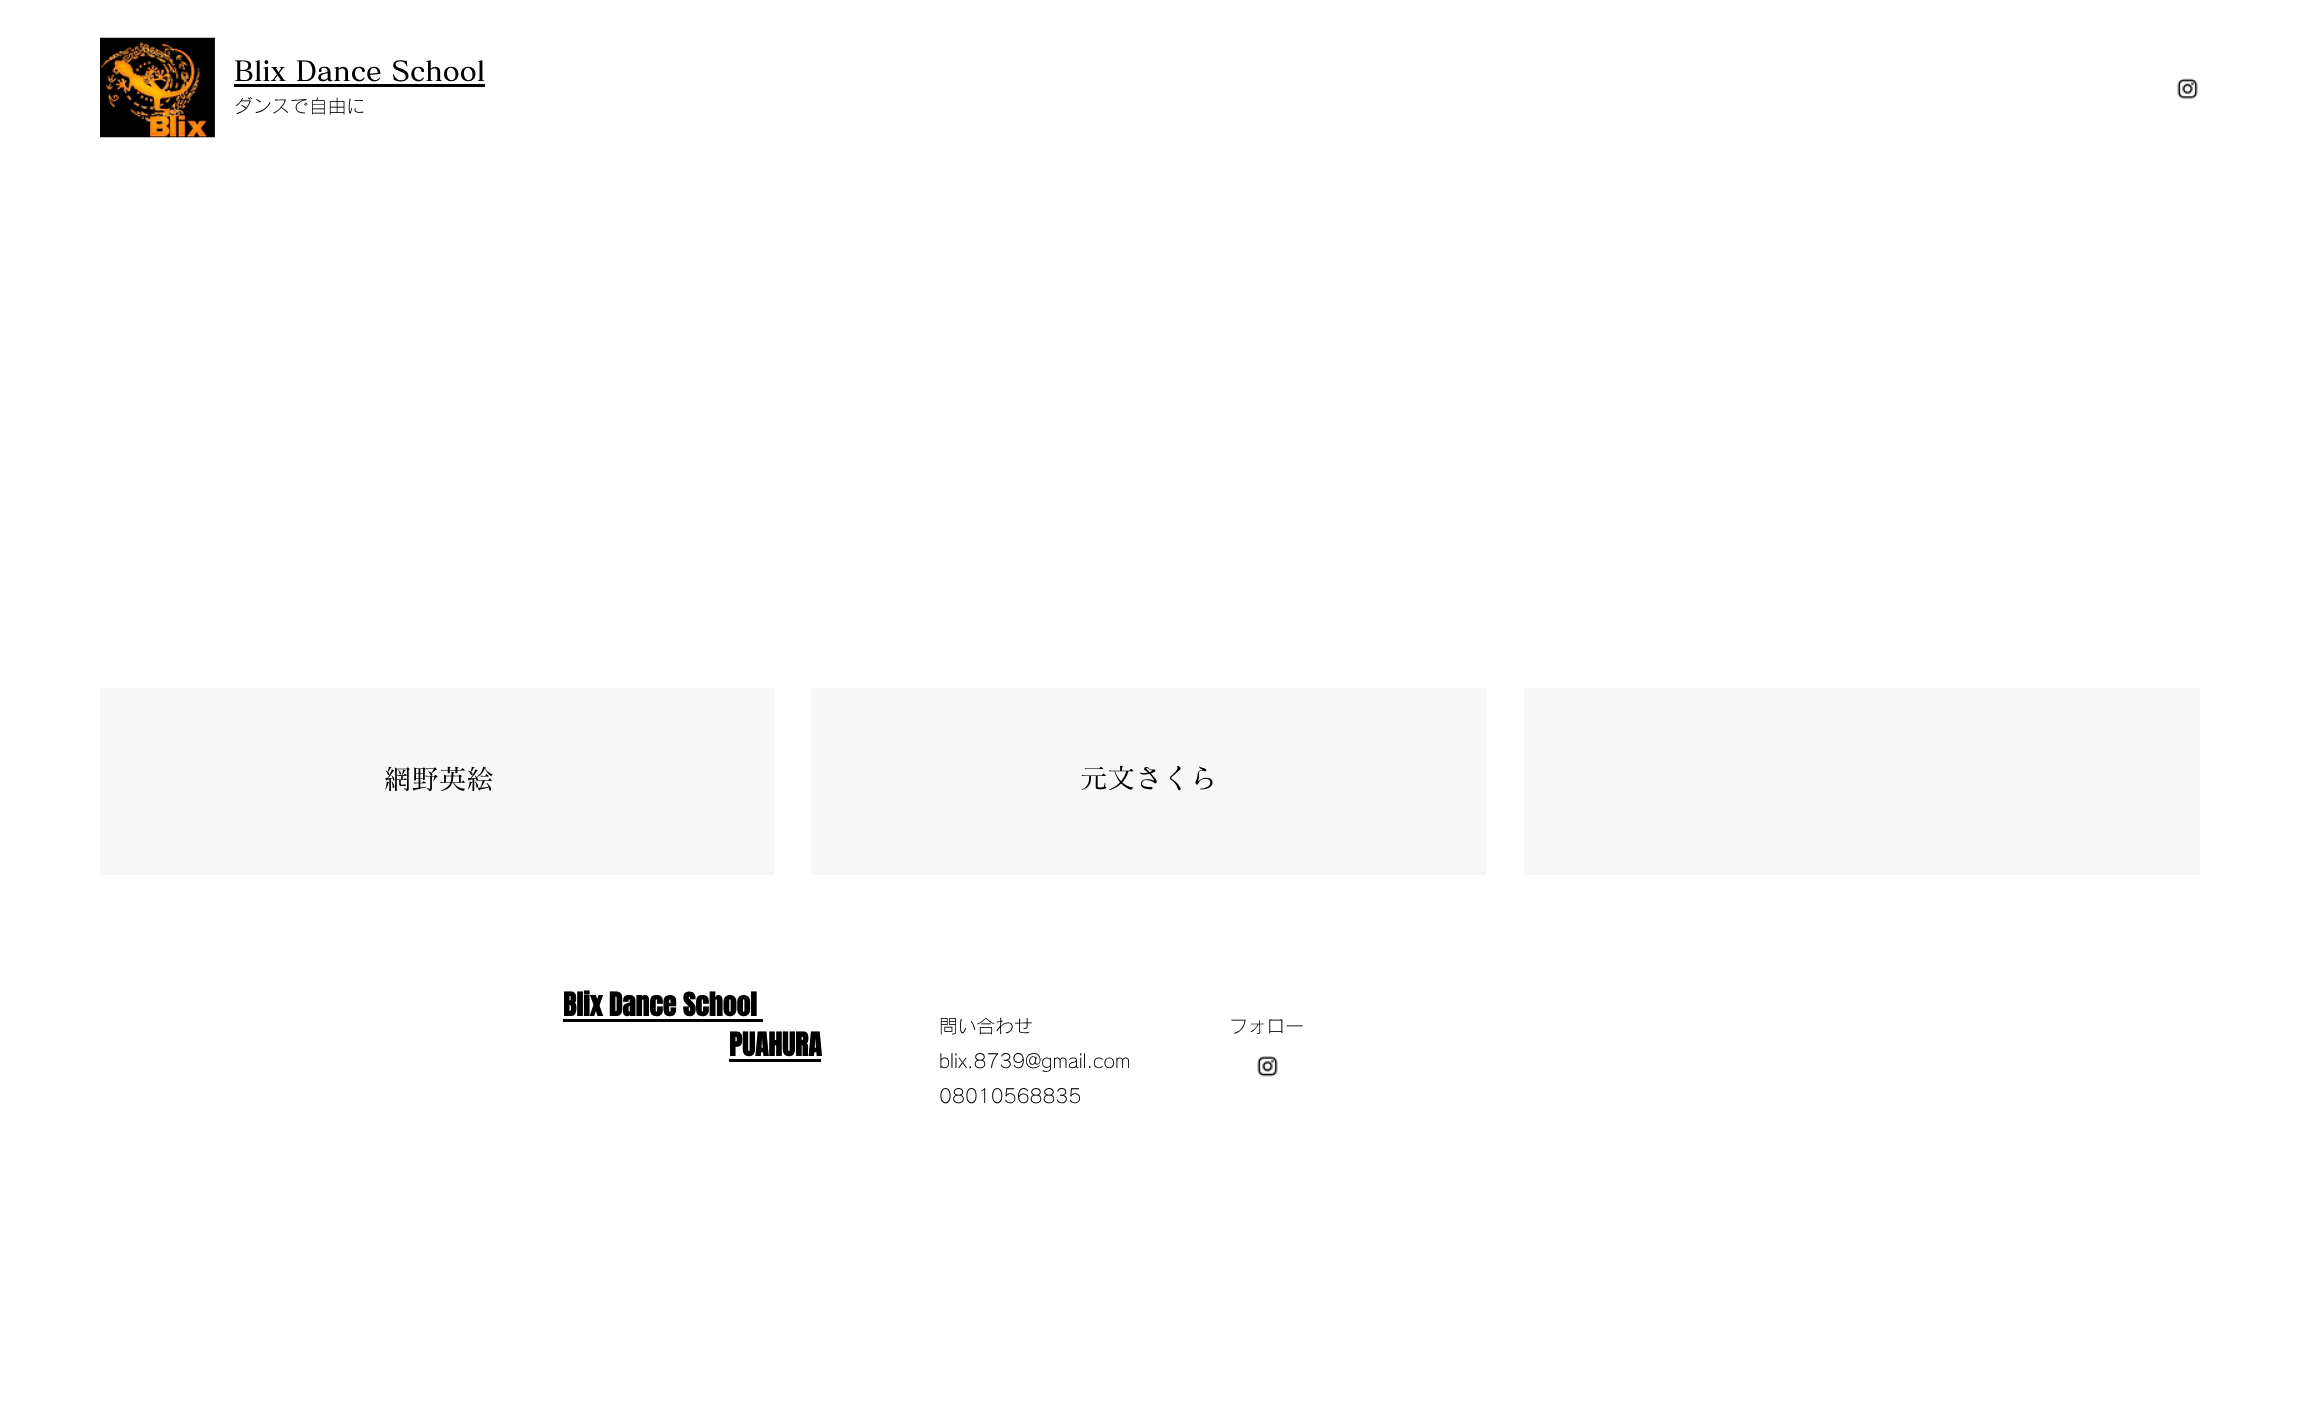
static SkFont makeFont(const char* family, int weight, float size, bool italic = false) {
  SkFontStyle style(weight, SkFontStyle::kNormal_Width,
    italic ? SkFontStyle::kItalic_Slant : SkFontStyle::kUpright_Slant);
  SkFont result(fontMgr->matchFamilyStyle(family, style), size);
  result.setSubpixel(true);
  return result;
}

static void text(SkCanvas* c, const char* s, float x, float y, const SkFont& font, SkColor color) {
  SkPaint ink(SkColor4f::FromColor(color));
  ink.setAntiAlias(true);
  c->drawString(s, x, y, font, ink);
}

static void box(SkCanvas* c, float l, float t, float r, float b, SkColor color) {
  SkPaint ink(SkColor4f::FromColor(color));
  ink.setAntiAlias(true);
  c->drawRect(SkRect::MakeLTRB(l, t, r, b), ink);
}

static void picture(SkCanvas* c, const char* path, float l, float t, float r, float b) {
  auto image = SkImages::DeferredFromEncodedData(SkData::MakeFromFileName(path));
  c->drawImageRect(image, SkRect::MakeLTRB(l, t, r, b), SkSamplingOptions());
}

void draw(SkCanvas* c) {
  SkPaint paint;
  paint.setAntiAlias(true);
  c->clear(0xffffffff);
  picture(c, "img_01.png", 100, 37, 215, 138);
  SkFont face1 = makeFont("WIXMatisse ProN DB", 600, 27.5f);
  text(c, "Blix Dance School", 234, 81, face1, 0xff000000);
  box(c, 234, 84, 485, 87, 0xff000000);
  SkFont face2 = makeFont("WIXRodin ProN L", 300, 18.75f);
  text(c, "ダンスで自由に", 234, 113, face2, 0xff000000);
  picture(c, "img_02.png", 2177, 78, 2198, 99);
  box(c, 100, 688, 774, 875, 0xfff7f7f7);
  SkFont face3 = makeFont("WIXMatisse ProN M", 500, 27.5f);
  text(c, "網野英絵", 384, 789, face3, 0xff000000);
  box(c, 811, 688, 1486, 875, 0xfff7f7f7);
  text(c, "元文さくら", 1080, 788, face3, 0xff000000);
  box(c, 1524, 688, 2200, 875, 0xfff7f7f7);
  SkFont face4 = makeFont("Anton", 700, 27.5f);
  text(c, "Blix Dance School", 563, 1016, face4, 0xff000000);
  box(c, 563, 1019, 763, 1022, 0xff000000);
  text(c, "PUAHURA", 729, 1056, face4, 0xff000000);
  box(c, 729, 1059, 821, 1062, 0xff000000);
  text(c, "問い合わせ", 939, 1033, face2, 0xff000000);
  text(c, "フォロー", 1229, 1033, face2, 0xff000000);
  text(c, "blix.8739@gmail.com", 939, 1068, face2, 0xff000000);
  picture(c, "img_03.png", 1257, 1056, 1278, 1077);
  text(c, "08010568835", 939, 1103, face2, 0xff000000);
}
